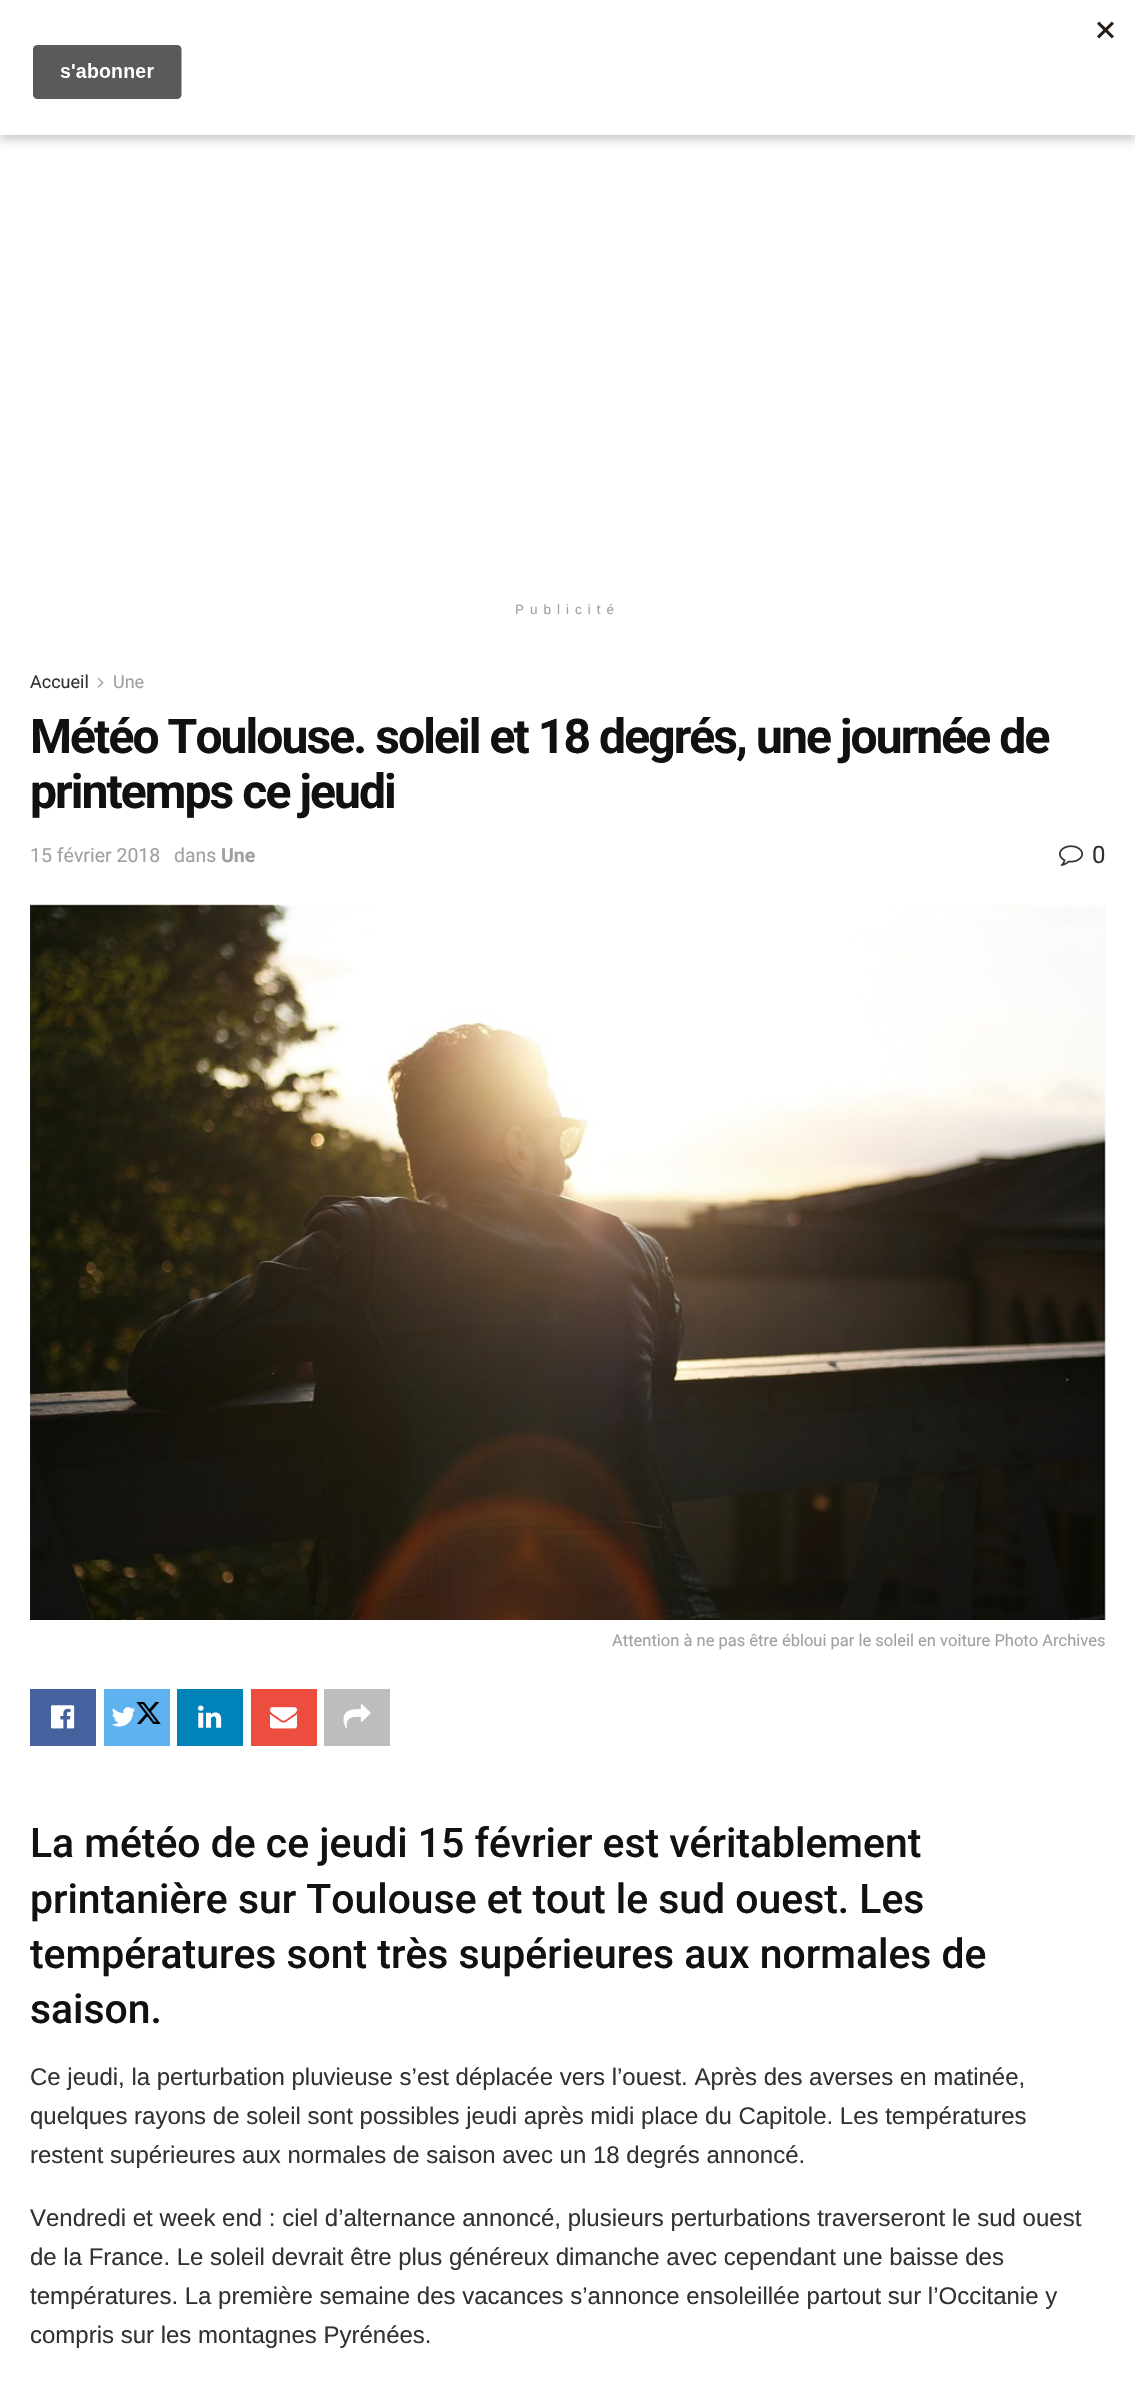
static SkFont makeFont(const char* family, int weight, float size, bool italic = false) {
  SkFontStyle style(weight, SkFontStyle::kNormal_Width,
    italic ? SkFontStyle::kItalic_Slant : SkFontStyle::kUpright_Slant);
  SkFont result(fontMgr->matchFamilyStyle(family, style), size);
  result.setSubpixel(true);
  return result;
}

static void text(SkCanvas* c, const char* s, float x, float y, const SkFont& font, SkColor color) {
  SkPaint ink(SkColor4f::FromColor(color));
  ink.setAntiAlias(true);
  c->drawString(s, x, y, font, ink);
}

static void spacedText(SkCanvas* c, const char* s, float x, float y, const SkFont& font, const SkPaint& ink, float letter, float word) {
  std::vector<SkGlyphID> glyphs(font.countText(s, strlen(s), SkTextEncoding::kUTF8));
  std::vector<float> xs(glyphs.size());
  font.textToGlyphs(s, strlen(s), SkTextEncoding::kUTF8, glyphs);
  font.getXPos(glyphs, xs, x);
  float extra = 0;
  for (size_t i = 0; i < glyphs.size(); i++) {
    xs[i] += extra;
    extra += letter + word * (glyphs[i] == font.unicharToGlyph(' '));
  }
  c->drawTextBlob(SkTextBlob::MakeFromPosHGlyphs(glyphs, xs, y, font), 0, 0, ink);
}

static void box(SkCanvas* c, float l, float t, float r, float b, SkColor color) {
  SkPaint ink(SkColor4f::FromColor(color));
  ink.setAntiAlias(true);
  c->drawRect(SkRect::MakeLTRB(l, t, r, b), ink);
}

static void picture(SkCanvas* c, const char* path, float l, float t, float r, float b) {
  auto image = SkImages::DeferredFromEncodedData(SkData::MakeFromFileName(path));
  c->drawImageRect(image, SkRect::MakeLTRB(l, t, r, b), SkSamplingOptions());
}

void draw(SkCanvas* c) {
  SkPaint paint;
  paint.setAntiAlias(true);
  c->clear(0xffffffff);
  paint.setColor(0x33000000);
  paint.setMaskFilter(SkMaskFilter::MakeBlur(kNormal_SkBlurStyle, 4.5f));
  c->drawRect(SkRect::MakeLTRB(0, 5, 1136, 140), paint);
  paint.setMaskFilter(nullptr);
  box(c, 0, 0, 1135, 135, 0xffffffff);
  picture(c, "img_01.png", 32, 21, 1114, 99);
  SkFont face1 = makeFont("Liberation Sans", 400, 13.5f);
  paint.setColor(0xffa0a0a0);
  spacedText(c, "Publicité", 515, 614, face1, paint, 6, 0);
  SkFont face2 = makeFont("Roboto", 400, 18);
  text(c, "Accueil", 30, 688, face2, 0xff323232);
  picture(c, "img_02.png", 97, 677, 104, 688);
  text(c, "Une", 113, 688, face2, 0xffa0a0a0);
  SkFont face3 = makeFont("Roboto", 700, 48);
  paint.setColor(0xff111111);
  spacedText(c, "Météo Toulouse. soleil et 18 degrés, une journée de", 30, 753, face3, paint, -1.92f, 0);
  spacedText(c, "printemps ce jeudi", 30, 808, face3, paint, -1.92f, 0);
  SkFont face4 = makeFont("Roboto", 400, 19.5f);
  text(c, "15 février 2018", 30, 862, face4, 0xffa0a0a0);
  text(c, "dans", 174, 862, face4, 0xffa0a0a0);
  SkFont face5 = makeFont("Roboto", 700, 19.5f);
  text(c, "Une", 221, 862, face5, 0xffa0a0a0);
  picture(c, "img_03.png", 1059, 845, 1083, 866);
  SkFont face6 = makeFont("Roboto", 400, 24);
  text(c, "0", 1092, 863, face6, 0xff323232);
  box(c, 1105, 905, 1106, 1620, 0xfff7f7f7);
  picture(c, "img_04.png", 30, 904, 1106, 1620);
  SkFont face7 = makeFont("Roboto", 400, 16.5f);
  text(c, "Attention à ne pas être ébloui par le soleil en voiture Photo Archives", 612, 1646, face7, 0xffa0a0a0);
  box(c, 30, 1689, 96, 1746, 0xff45629f);
  picture(c, "img_05.png", 51, 1705, 75, 1729);
  box(c, 104, 1689, 170, 1746, 0xff5eb2ef);
  picture(c, "img_06.png", 112, 1707, 136, 1727);
  picture(c, "img_07.png", 136, 1702, 161, 1724);
  box(c, 177, 1689, 243, 1746, 0xff0083bb);
  picture(c, "img_08.png", 198, 1705, 222, 1728);
  box(c, 251, 1689, 317, 1746, 0xffeb4d3f);
  picture(c, "img_09.png", 270, 1707, 297, 1729);
  box(c, 324, 1689, 390, 1746, 0xffbdbdbd);
  picture(c, "img_10.png", 343, 1704, 371, 1729);
  SkFont face8 = makeFont("Roboto", 500, 40.9f);
  text(c, "La météo de ce jeudi 15 février est véritablement", 30, 1857, face8, 0xff111111);
  text(c, "printanière sur Toulouse et tout le sud ouest. Les", 30, 1913, face8, 0xff111111);
  text(c, "températures sont très supérieures aux normales de", 30, 1968, face8, 0xff111111);
  text(c, "saison.", 30, 2023, face8, 0xff111111);
  SkFont face9 = makeFont("Liberation Sans", 400, 24);
  text(c, "Ce jeudi, la perturbation pluvieuse s’est déplacée vers l’ouest. Après des averses en matinée,", 30, 2085, face9, 0xff323232);
  text(c, "quelques rayons de soleil sont possibles jeudi après midi place du Capitole. Les températures", 30, 2124, face9, 0xff323232);
  text(c, "restent supérieures aux normales de saison avec un 18 degrés annoncé.", 30, 2163, face9, 0xff323232);
  text(c, "Vendredi et week end : ciel d’alternance annoncé, plusieurs perturbations traverseront le sud ouest", 30, 2226, face9, 0xff323232);
  text(c, "de la France. Le soleil devrait être plus généreux dimanche avec cependant une baisse des", 30, 2265, face9, 0xff323232);
  text(c, "températures. La première semaine des vacances s’annonce ensoleillée partout sur l’Occitanie y", 30, 2304, face9, 0xff323232);
  text(c, "compris sur les montagnes Pyrénées.", 30, 2343, face9, 0xff323232);
}
